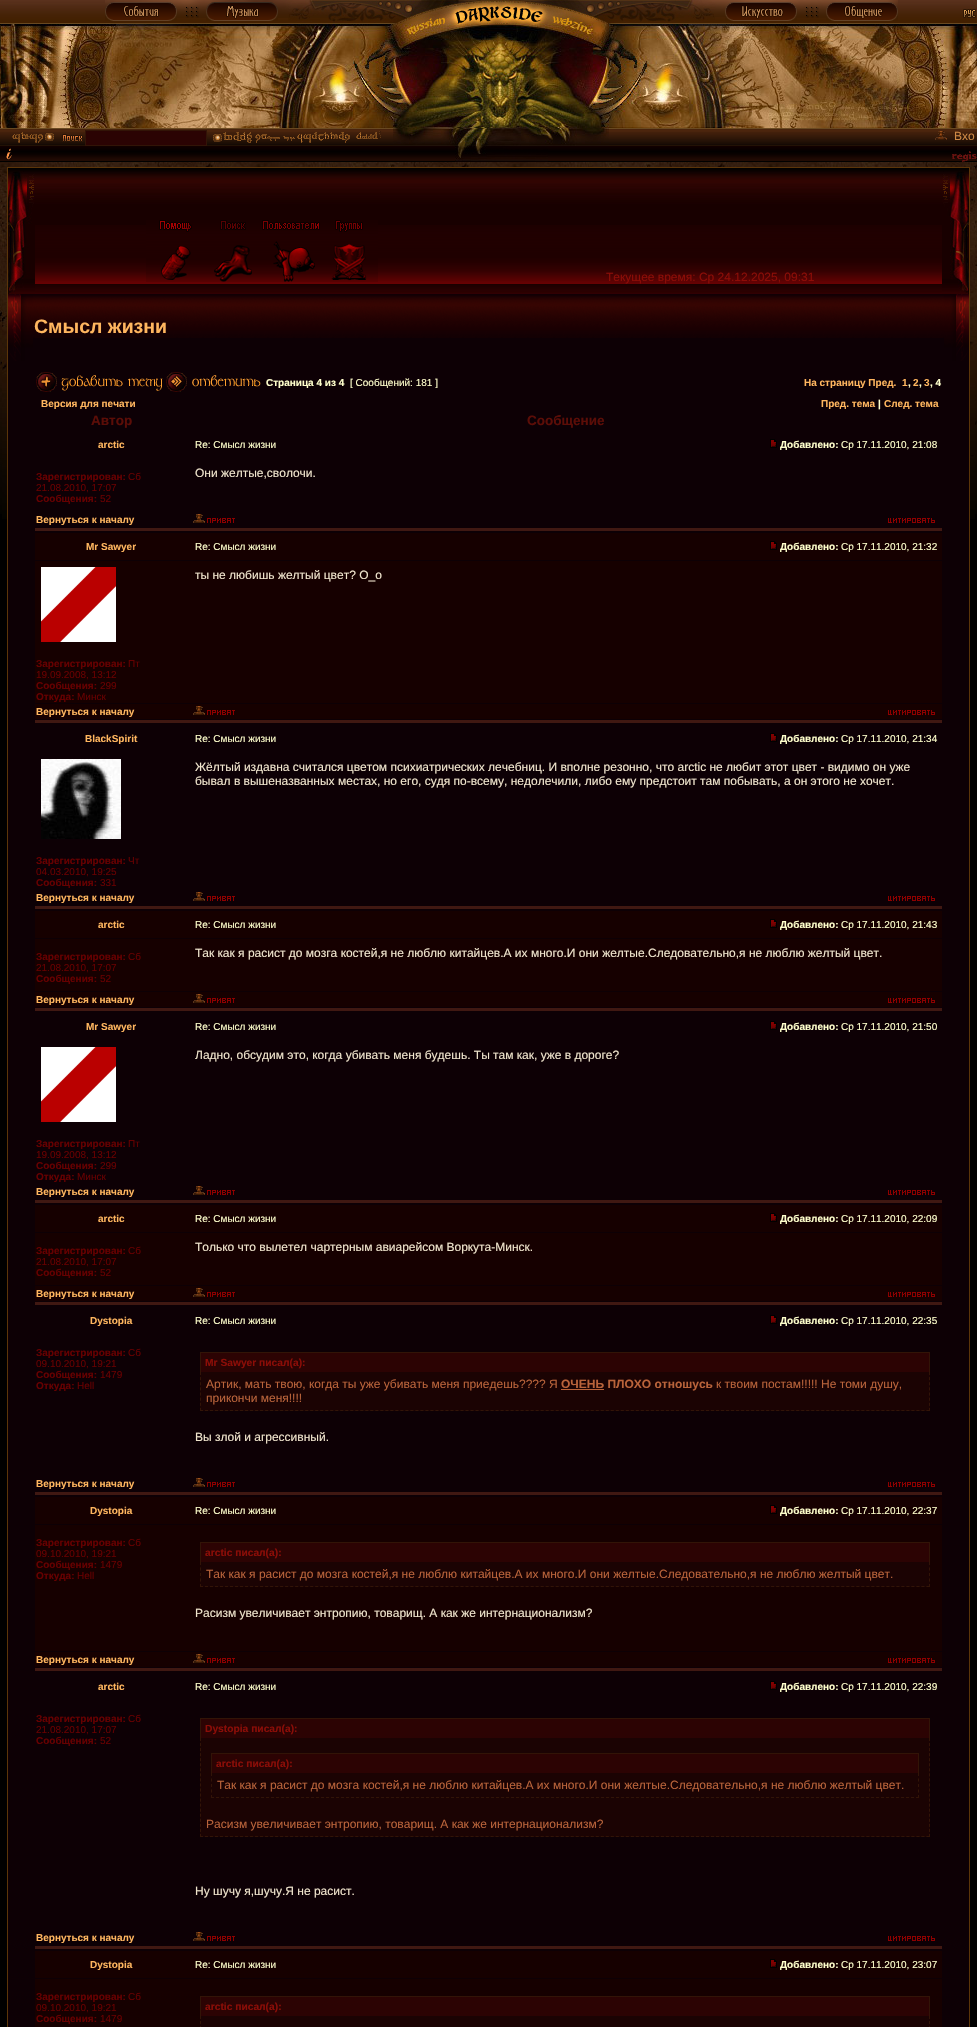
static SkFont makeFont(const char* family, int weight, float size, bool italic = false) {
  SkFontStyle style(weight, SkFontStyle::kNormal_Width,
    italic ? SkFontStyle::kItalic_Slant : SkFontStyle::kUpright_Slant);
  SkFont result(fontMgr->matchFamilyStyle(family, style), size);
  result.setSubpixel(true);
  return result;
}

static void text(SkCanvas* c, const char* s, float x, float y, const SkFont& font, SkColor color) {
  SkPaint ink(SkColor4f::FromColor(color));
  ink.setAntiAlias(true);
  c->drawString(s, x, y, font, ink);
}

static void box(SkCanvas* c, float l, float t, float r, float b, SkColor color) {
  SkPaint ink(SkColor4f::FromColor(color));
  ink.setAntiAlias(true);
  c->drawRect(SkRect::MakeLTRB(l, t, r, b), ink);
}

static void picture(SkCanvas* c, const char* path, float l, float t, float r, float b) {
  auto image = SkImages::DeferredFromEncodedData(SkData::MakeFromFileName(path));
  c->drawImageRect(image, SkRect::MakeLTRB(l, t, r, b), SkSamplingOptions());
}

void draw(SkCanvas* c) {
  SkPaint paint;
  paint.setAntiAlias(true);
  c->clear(0xff000000);
  picture(c, "img_01.png", 0, 0, 51, 24);
  picture(c, "img_02.png", 51, 0, 951, 24);
  picture(c, "img_03.png", 105, 0, 177, 21);
  picture(c, "img_04.png", 177, 0, 206, 18);
  picture(c, "img_05.png", 206, 0, 278, 21);
  picture(c, "img_06.png", 278, 0, 288, 18);
  picture(c, "img_07.png", 288, 0, 715, 24);
  picture(c, "img_08.png", 715, 0, 725, 17);
  picture(c, "img_09.png", 725, 0, 797, 21);
  picture(c, "img_10.png", 797, 0, 826, 18);
  picture(c, "img_11.png", 826, 0, 898, 21);
  picture(c, "img_12.png", 951, 0, 977, 24);
  picture(c, "img_13.png", 963, 9, 976, 18);
  picture(c, "img_14.png", 0, 25, 1, 128);
  picture(c, "img_15.png", 1, 24, 977, 128);
  picture(c, "img_16.png", 0, 128, 977, 146);
  picture(c, "img_17.png", 12, 132, 54, 143);
  picture(c, "img_18.png", 62, 134, 83, 142);
  paint.setColor(0xff2b0303);
  c->drawRect(SkRect::MakeLTRB(85.5f, 130.5f, 206.5f, 145.5f), paint);
  paint.setStyle(SkPaint::kStroke_Style);
  paint.setStrokeWidth(1);
  paint.setColor(0xff321407);
  c->drawRect(SkRect::MakeLTRB(85.5f, 130.5f, 206.5f, 145.5f), paint);
  picture(c, "img_19.png", 213, 131, 381, 143);
  picture(c, "img_20.png", 393, 128, 609, 146);
  picture(c, "img_21.png", 935, 131, 947, 140);
  SkFont face1 = makeFont("Liberation Sans", 400, 12);
  text(c, "Вхо", 954, 140, face1, 0xffce8945);
  picture(c, "img_22.png", 0, 146, 977, 162);
  picture(c, "img_23.png", 6, 148, 12, 160);
  picture(c, "img_24.png", 455, 146, 548, 162);
  picture(c, "img_25.png", 952, 151, 977, 162);
  picture(c, "img_26.png", 0, 162, 977, 514);
  picture(c, "img_27.png", 2, 167, 975, 519);
  box(c, 7, 167, 970, 2027, 0xff5b3509);
  box(c, 8, 338, 969, 2027, 0xff0d0005);
  picture(c, "img_28.png", 8, 168, 969, 294);
  picture(c, "img_29.png", 8, 171, 35, 294);
  picture(c, "img_30.png", 35, 225, 488, 284);
  picture(c, "img_31.png", 146, 220, 204, 282);
  picture(c, "img_32.png", 204, 220, 262, 282);
  picture(c, "img_33.png", 262, 220, 320, 282);
  picture(c, "img_34.png", 320, 220, 378, 282);
  picture(c, "img_35.png", 488, 225, 942, 284);
  text(c, "Текущее время: Ср 24.12.2025, 09:31", 606, 281, face1, 0xff8c0d07);
  picture(c, "img_36.png", 942, 171, 969, 294);
  picture(c, "img_37.png", 33, 294, 944, 338);
  picture(c, "img_38.png", 8, 294, 33, 361);
  SkFont face2 = makeFont("Liberation Sans", 700, 19.5f);
  text(c, "Смысл жизни", 34, 333, face2, 0xffffb65f);
  picture(c, "img_39.png", 36, 372, 163, 392);
  picture(c, "img_40.png", 166, 372, 261, 392);
  SkFont face3 = makeFont("Liberation Sans", 700, 10);
  text(c, "Страница 4 из 4", 266, 386, face3, 0xffffffcc);
  SkFont face4 = makeFont("Liberation Sans", 400, 10);
  text(c, "[ Сообщений: 181 ]", 350, 386, face4, 0xffffffcc);
  text(c, "На страницу Пред.", 804, 386, face3, 0xffffb65f);
  text(c, "1", 902, 386, face3, 0xffffb65f);
  text(c, ",", 908, 386, face3, 0xffffffcc);
  text(c, "2", 913, 386, face3, 0xffffb65f);
  text(c, ",", 919, 386, face3, 0xffffffcc);
  text(c, "3", 924, 386, face3, 0xffffb65f);
  text(c, ", 4", 930, 386, face3, 0xffffffcc);
  text(c, "Версия для печати", 41, 407, face3, 0xffffb65f);
  text(c, "Пред. тема", 821, 407, face3, 0xffffb65f);
  text(c, "|", 878, 407, face3, 0xffffffcc);
  text(c, "След. тема", 884, 407, face3, 0xffffb65f);
  SkFont face5 = makeFont("Liberation Sans", 700, 13.5f);
  text(c, "Автор", 91, 425, face5, 0xff5c0d07);
  text(c, "Сообщение", 527, 425, face5, 0xff5c0d07);
  text(c, "arctic", 98, 448, face3, 0xffffb65f);
  text(c, "Re: Смысл жизни", 195, 448, face4, 0xffffffcc);
  picture(c, "img_41.png", 770, 439, 777, 448);
  text(c, "Добавлено:", 780, 448, face3, 0xffffffcc);
  text(c, "Ср 17.11.2010, 21:08", 841, 448, face4, 0xffffffcc);
  text(c, "Зарегистрирован:", 36, 480, face3, 0xff660000);
  text(c, "Сб", 128, 480, face4, 0xff660000);
  text(c, "21.08.2010, 17:07", 36, 491, face4, 0xff660000);
  text(c, "Сообщения:", 36, 502, face3, 0xff660000);
  text(c, "52", 100, 502, face4, 0xff660000);
  text(c, "Они желтые,сволочи.", 195, 477, face1, 0xfff0e5cd);
  text(c, "Вернуться к началу", 36, 523, face3, 0xffffb65f);
  picture(c, "img_42.png", 193, 514, 205, 523);
  picture(c, "img_43.png", 207, 518, 235, 523);
  picture(c, "img_44.png", 888, 518, 935, 523);
  box(c, 35, 528, 942, 531, 0xff401812);
  box(c, 35, 533, 942, 560, 0xff160000);
  text(c, "Mr Sawyer", 86, 550, face3, 0xffffb65f);
  text(c, "Re: Смысл жизни", 195, 550, face4, 0xffffffcc);
  picture(c, "img_45.png", 770, 541, 777, 550);
  text(c, "Добавлено:", 780, 550, face3, 0xffffffcc);
  text(c, "Ср 17.11.2010, 21:32", 841, 550, face4, 0xffffffcc);
  box(c, 35, 561, 942, 703, 0xff160000);
  text(c, "ты не любишь желтый цвет? О_о", 195, 579, face1, 0xfff0e5cd);
  picture(c, "img_46.png", 41, 567, 116, 642);
  text(c, "Зарегистрирован:", 36, 667, face3, 0xff660000);
  text(c, "Пт", 128, 667, face4, 0xff660000);
  text(c, "19.09.2008, 13:12", 36, 678, face4, 0xff660000);
  text(c, "Сообщения:", 36, 689, face3, 0xff660000);
  text(c, "299", 100, 689, face4, 0xff660000);
  text(c, "Откуда:", 36, 700, face3, 0xff660000);
  text(c, "Минск", 77, 700, face4, 0xff660000);
  box(c, 35, 704, 942, 719, 0xff160000);
  text(c, "Вернуться к началу", 36, 715, face3, 0xffffb65f);
  picture(c, "img_47.png", 193, 706, 205, 715);
  picture(c, "img_48.png", 207, 710, 235, 715);
  picture(c, "img_49.png", 888, 710, 935, 715);
  box(c, 35, 720, 942, 723, 0xff401812);
  text(c, "BlackSpirit", 85, 742, face3, 0xffffb65f);
  text(c, "Re: Смысл жизни", 195, 742, face4, 0xffffffcc);
  picture(c, "img_41.png", 770, 733, 777, 742);
  text(c, "Добавлено:", 780, 742, face3, 0xffffffcc);
  text(c, "Ср 17.11.2010, 21:34", 841, 742, face4, 0xffffffcc);
  text(c, "Жёлтый издавна считался цветом психиатрических лечебниц. И вполне резонно, что arctic не любит этот цвет - видимо он уже", 195, 771, face1, 0xfff0e5cd);
  text(c, "бывал в вышеназванных местах, но его, судя по-всему, недолечили, либо ему предстоит там побывать, а он этого не хочет.", 195, 785, face1, 0xfff0e5cd);
  picture(c, "img_50.png", 41, 759, 121, 839);
  text(c, "Зарегистрирован:", 36, 864, face3, 0xff660000);
  text(c, "Чт", 128, 864, face4, 0xff660000);
  text(c, "04.03.2010, 19:25", 36, 875, face4, 0xff660000);
  text(c, "Сообщения:", 36, 886, face3, 0xff660000);
  text(c, "331", 100, 886, face4, 0xff660000);
  text(c, "Вернуться к началу", 36, 901, face3, 0xffffb65f);
  picture(c, "img_42.png", 193, 892, 205, 901);
  picture(c, "img_43.png", 207, 896, 235, 901);
  picture(c, "img_44.png", 888, 896, 935, 901);
  box(c, 35, 906, 942, 909, 0xff401812);
  box(c, 35, 911, 942, 938, 0xff160000);
  text(c, "arctic", 98, 928, face3, 0xffffb65f);
  text(c, "Re: Смысл жизни", 195, 928, face4, 0xffffffcc);
  picture(c, "img_45.png", 770, 919, 777, 928);
  text(c, "Добавлено:", 780, 928, face3, 0xffffffcc);
  text(c, "Ср 17.11.2010, 21:43", 841, 928, face4, 0xffffffcc);
  box(c, 35, 939, 942, 991, 0xff160000);
  text(c, "Зарегистрирован:", 36, 960, face3, 0xff660000);
  text(c, "Сб", 128, 960, face4, 0xff660000);
  text(c, "21.08.2010, 17:07", 36, 971, face4, 0xff660000);
  text(c, "Сообщения:", 36, 982, face3, 0xff660000);
  text(c, "52", 100, 982, face4, 0xff660000);
  text(c, "Так как я расист до мозга костей,я не люблю китайцев.А их много.И они желтые.Следовательно,я не люблю желтый цвет.", 195, 957, face1, 0xfff0e5cd);
  box(c, 35, 992, 942, 1007, 0xff160000);
  text(c, "Вернуться к началу", 36, 1003, face3, 0xffffb65f);
  picture(c, "img_47.png", 193, 994, 205, 1003);
  picture(c, "img_48.png", 207, 998, 235, 1003);
  picture(c, "img_49.png", 888, 998, 935, 1003);
  box(c, 35, 1008, 942, 1011, 0xff401812);
  text(c, "Mr Sawyer", 86, 1030, face3, 0xffffb65f);
  text(c, "Re: Смысл жизни", 195, 1030, face4, 0xffffffcc);
  picture(c, "img_41.png", 770, 1021, 777, 1030);
  text(c, "Добавлено:", 780, 1030, face3, 0xffffffcc);
  text(c, "Ср 17.11.2010, 21:50", 841, 1030, face4, 0xffffffcc);
  text(c, "Ладно, обсудим это, когда убивать меня будешь. Ты там как, уже в дороге?", 195, 1059, face1, 0xfff0e5cd);
  picture(c, "img_46.png", 41, 1047, 116, 1122);
  text(c, "Зарегистрирован:", 36, 1147, face3, 0xff660000);
  text(c, "Пт", 128, 1147, face4, 0xff660000);
  text(c, "19.09.2008, 13:12", 36, 1158, face4, 0xff660000);
  text(c, "Сообщения:", 36, 1169, face3, 0xff660000);
  text(c, "299", 100, 1169, face4, 0xff660000);
  text(c, "Откуда:", 36, 1180, face3, 0xff660000);
  text(c, "Минск", 77, 1180, face4, 0xff660000);
  text(c, "Вернуться к началу", 36, 1195, face3, 0xffffb65f);
  picture(c, "img_42.png", 193, 1186, 205, 1195);
  picture(c, "img_43.png", 207, 1190, 235, 1195);
  picture(c, "img_44.png", 888, 1190, 935, 1195);
  box(c, 35, 1200, 942, 1203, 0xff401812);
  box(c, 35, 1205, 942, 1232, 0xff160000);
  text(c, "arctic", 98, 1222, face3, 0xffffb65f);
  text(c, "Re: Смысл жизни", 195, 1222, face4, 0xffffffcc);
  picture(c, "img_45.png", 770, 1213, 777, 1222);
  text(c, "Добавлено:", 780, 1222, face3, 0xffffffcc);
  text(c, "Ср 17.11.2010, 22:09", 841, 1222, face4, 0xffffffcc);
  box(c, 35, 1233, 942, 1285, 0xff160000);
  text(c, "Зарегистрирован:", 36, 1254, face3, 0xff660000);
  text(c, "Сб", 128, 1254, face4, 0xff660000);
  text(c, "21.08.2010, 17:07", 36, 1265, face4, 0xff660000);
  text(c, "Сообщения:", 36, 1276, face3, 0xff660000);
  text(c, "52", 100, 1276, face4, 0xff660000);
  text(c, "Только что вылетел чартерным авиарейсом Воркута-Минск.", 195, 1251, face1, 0xfff0e5cd);
  box(c, 35, 1286, 942, 1301, 0xff160000);
  text(c, "Вернуться к началу", 36, 1297, face3, 0xffffb65f);
  picture(c, "img_47.png", 193, 1288, 205, 1297);
  picture(c, "img_48.png", 207, 1292, 235, 1297);
  picture(c, "img_49.png", 888, 1292, 935, 1297);
  box(c, 35, 1302, 942, 1305, 0xff401812);
  text(c, "Dystopia", 90, 1324, face3, 0xffffb65f);
  text(c, "Re: Смысл жизни", 195, 1324, face4, 0xffffffcc);
  picture(c, "img_41.png", 770, 1315, 777, 1324);
  text(c, "Добавлено:", 780, 1324, face3, 0xffffffcc);
  text(c, "Ср 17.11.2010, 22:35", 841, 1324, face4, 0xffffffcc);
  text(c, "Зарегистрирован:", 36, 1356, face3, 0xff660000);
  text(c, "Сб", 128, 1356, face4, 0xff660000);
  text(c, "09.10.2010, 19:21", 36, 1367, face4, 0xff660000);
  text(c, "Сообщения:", 36, 1378, face3, 0xff660000);
  text(c, "1479", 100, 1378, face4, 0xff660000);
  text(c, "Откуда:", 36, 1389, face3, 0xff660000);
  text(c, "Hell", 77, 1389, face4, 0xff660000);
  box(c, 201, 1353, 929, 1372, 0xff2c0303);
  box(c, 200, 1352, 930, 1353, 0xff321407);
  box(c, 929, 1352, 930, 1372, 0xff321407);
  box(c, 200, 1352, 201, 1372, 0xff321407);
  SkFont face6 = makeFont("Liberation Sans", 700, 10.25f);
  text(c, "Mr Sawyer писал(а):", 205, 1366, face6, 0xff8c0d07);
  box(c, 200, 1372, 930, 1411, 0xff1b0303);
  paint.setPathEffect(SkDashPathEffect::Make({{3, 2.14f}}, 0));
  c->drawPath(SkPathBuilder().moveTo(929.5f, 1372).lineTo(929.5f, 1411).detach(), paint);
  paint.setPathEffect(nullptr);
  paint.setPathEffect(SkDashPathEffect::Make({{3, 2.01f}}, 0));
  c->drawPath(SkPathBuilder().moveTo(200, 1410.5f).lineTo(930, 1410.5f).detach(), paint);
  paint.setPathEffect(nullptr);
  paint.setPathEffect(SkDashPathEffect::Make({{3, 2.14f}}, 0));
  c->drawPath(SkPathBuilder().moveTo(200.5f, 1372).lineTo(200.5f, 1411).detach(), paint);
  paint.setPathEffect(nullptr);
  text(c, "Артик, мать твою, когда ты уже убивать меня приедешь?\077?\077 Я", 206, 1388, face1, 0xffb9633a);
  box(c, 561, 1389, 604, 1390, 0xffb9633a);
  SkFont face7 = makeFont("Liberation Sans", 700, 12);
  text(c, "ОЧЕНЬ ПЛОХО отношусь", 561, 1388, face7, 0xffb9633a);
  text(c, "к твоим постам!!!!! Не томи душу,", 716, 1388, face1, 0xffb9633a);
  text(c, "прикончи меня!!!!", 206, 1402, face1, 0xffb9633a);
  text(c, "Вы злой и агрессивный.", 195, 1441, face1, 0xfff0e5cd);
  text(c, "Вернуться к началу", 36, 1487, face3, 0xffffb65f);
  picture(c, "img_42.png", 193, 1478, 205, 1487);
  picture(c, "img_43.png", 207, 1482, 235, 1487);
  picture(c, "img_44.png", 888, 1482, 935, 1487);
  box(c, 35, 1492, 942, 1495, 0xff401812);
  box(c, 35, 1497, 942, 1524, 0xff160000);
  text(c, "Dystopia", 90, 1514, face3, 0xffffb65f);
  text(c, "Re: Смысл жизни", 195, 1514, face4, 0xffffffcc);
  picture(c, "img_45.png", 770, 1505, 777, 1514);
  text(c, "Добавлено:", 780, 1514, face3, 0xffffffcc);
  text(c, "Ср 17.11.2010, 22:37", 841, 1514, face4, 0xffffffcc);
  box(c, 35, 1525, 942, 1651, 0xff160000);
  text(c, "Зарегистрирован:", 36, 1546, face3, 0xff660000);
  text(c, "Сб", 128, 1546, face4, 0xff660000);
  text(c, "09.10.2010, 19:21", 36, 1557, face4, 0xff660000);
  text(c, "Сообщения:", 36, 1568, face3, 0xff660000);
  text(c, "1479", 100, 1568, face4, 0xff660000);
  text(c, "Откуда:", 36, 1579, face3, 0xff660000);
  text(c, "Hell", 77, 1579, face4, 0xff660000);
  box(c, 201, 1543, 929, 1562, 0xff2c0303);
  box(c, 200, 1542, 930, 1543, 0xff321407);
  box(c, 929, 1542, 930, 1562, 0xff321407);
  box(c, 200, 1542, 201, 1562, 0xff321407);
  text(c, "arctic писал(а):", 205, 1556, face6, 0xff8c0d07);
  box(c, 200, 1562, 930, 1587, 0xff1b0303);
  paint.setPathEffect(SkDashPathEffect::Make({{3, 2.5f}}, 0));
  c->drawPath(SkPathBuilder().moveTo(929.5f, 1562).lineTo(929.5f, 1587).detach(), paint);
  paint.setPathEffect(nullptr);
  paint.setPathEffect(SkDashPathEffect::Make({{3, 2.01f}}, 0));
  c->drawPath(SkPathBuilder().moveTo(200, 1586.5f).lineTo(930, 1586.5f).detach(), paint);
  paint.setPathEffect(nullptr);
  paint.setPathEffect(SkDashPathEffect::Make({{3, 2.5f}}, 0));
  c->drawPath(SkPathBuilder().moveTo(200.5f, 1562).lineTo(200.5f, 1587).detach(), paint);
  paint.setPathEffect(nullptr);
  text(c, "Так как я расист до мозга костей,я не люблю китайцев.А их много.И они желтые.Следовательно,я не люблю желтый цвет.", 206, 1578, face1, 0xffb9633a);
  text(c, "Расизм увеличивает энтропию, товарищ. А как же интернационализм?", 195, 1617, face1, 0xfff0e5cd);
  box(c, 35, 1652, 942, 1667, 0xff160000);
  text(c, "Вернуться к началу", 36, 1663, face3, 0xffffb65f);
  picture(c, "img_47.png", 193, 1654, 205, 1663);
  picture(c, "img_48.png", 207, 1658, 235, 1663);
  picture(c, "img_49.png", 888, 1658, 935, 1663);
  box(c, 35, 1668, 942, 1671, 0xff401812);
  text(c, "arctic", 98, 1690, face3, 0xffffb65f);
  text(c, "Re: Смысл жизни", 195, 1690, face4, 0xffffffcc);
  picture(c, "img_41.png", 770, 1681, 777, 1690);
  text(c, "Добавлено:", 780, 1690, face3, 0xffffffcc);
  text(c, "Ср 17.11.2010, 22:39", 841, 1690, face4, 0xffffffcc);
  text(c, "Зарегистрирован:", 36, 1722, face3, 0xff660000);
  text(c, "Сб", 128, 1722, face4, 0xff660000);
  text(c, "21.08.2010, 17:07", 36, 1733, face4, 0xff660000);
  text(c, "Сообщения:", 36, 1744, face3, 0xff660000);
  text(c, "52", 100, 1744, face4, 0xff660000);
  box(c, 201, 1719, 929, 1738, 0xff2c0303);
  box(c, 200, 1718, 930, 1719, 0xff321407);
  box(c, 929, 1718, 930, 1738, 0xff321407);
  box(c, 200, 1718, 201, 1738, 0xff321407);
  text(c, "Dystopia писал(а):", 205, 1732, face6, 0xff8c0d07);
  box(c, 200, 1738, 930, 1837, 0xff1b0303);
  paint.setPathEffect(SkDashPathEffect::Make({{3, 2.05f}}, 0));
  c->drawPath(SkPathBuilder().moveTo(929.5f, 1738).lineTo(929.5f, 1837).detach(), paint);
  paint.setPathEffect(nullptr);
  paint.setPathEffect(SkDashPathEffect::Make({{3, 2.01f}}, 0));
  c->drawPath(SkPathBuilder().moveTo(200, 1836.5f).lineTo(930, 1836.5f).detach(), paint);
  paint.setPathEffect(nullptr);
  paint.setPathEffect(SkDashPathEffect::Make({{3, 2.05f}}, 0));
  c->drawPath(SkPathBuilder().moveTo(200.5f, 1738).lineTo(200.5f, 1837).detach(), paint);
  paint.setPathEffect(nullptr);
  box(c, 212, 1754, 918, 1773, 0xff2c0303);
  box(c, 211, 1753, 919, 1754, 0xff321407);
  box(c, 918, 1753, 919, 1773, 0xff321407);
  box(c, 211, 1753, 212, 1773, 0xff321407);
  text(c, "arctic писал(а):", 216, 1767, face6, 0xff8c0d07);
  paint.setPathEffect(SkDashPathEffect::Make({{3, 2.5f}}, 0));
  c->drawPath(SkPathBuilder().moveTo(918.5f, 1773).lineTo(918.5f, 1798).detach(), paint);
  paint.setPathEffect(nullptr);
  paint.setPathEffect(SkDashPathEffect::Make({{3, 2}}, 0));
  c->drawPath(SkPathBuilder().moveTo(211, 1797.5f).lineTo(919, 1797.5f).detach(), paint);
  paint.setPathEffect(nullptr);
  paint.setPathEffect(SkDashPathEffect::Make({{3, 2.5f}}, 0));
  c->drawPath(SkPathBuilder().moveTo(211.5f, 1773).lineTo(211.5f, 1798).detach(), paint);
  paint.setPathEffect(nullptr);
  text(c, "Так как я расист до мозга костей,я не люблю китайцев.А их много.И они желтые.Следовательно,я не люблю желтый цвет.", 217, 1789, face1, 0xffb9633a);
  text(c, "Расизм увеличивает энтропию, товарищ. А как же интернационализм?", 206, 1828, face1, 0xffb9633a);
  text(c, "Ну шучу я,шучу.Я не расист.", 195, 1895, face1, 0xfff0e5cd);
  text(c, "Вернуться к началу", 36, 1941, face3, 0xffffb65f);
  picture(c, "img_42.png", 193, 1932, 205, 1941);
  picture(c, "img_43.png", 207, 1936, 235, 1941);
  picture(c, "img_44.png", 888, 1936, 935, 1941);
  box(c, 35, 1946, 942, 1949, 0xff401812);
  box(c, 35, 1951, 942, 1978, 0xff160000);
  text(c, "Dystopia", 90, 1968, face3, 0xffffb65f);
  text(c, "Re: Смысл жизни", 195, 1968, face4, 0xffffffcc);
  picture(c, "img_45.png", 770, 1959, 777, 1968);
  text(c, "Добавлено:", 780, 1968, face3, 0xffffffcc);
  text(c, "Ср 17.11.2010, 23:07", 841, 1968, face4, 0xffffffcc);
  box(c, 35, 1979, 942, 2027, 0xff160000);
  text(c, "Зарегистрирован:", 36, 2000, face3, 0xff660000);
  text(c, "Сб", 128, 2000, face4, 0xff660000);
  text(c, "09.10.2010, 19:21", 36, 2011, face4, 0xff660000);
  text(c, "Сообщения:", 36, 2022, face3, 0xff660000);
  text(c, "1479", 100, 2022, face4, 0xff660000);
  box(c, 201, 1997, 929, 2016, 0xff2c0303);
  box(c, 200, 1996, 930, 1997, 0xff321407);
  box(c, 929, 1996, 930, 2016, 0xff321407);
  box(c, 200, 1996, 201, 2016, 0xff321407);
  text(c, "arctic писал(а):", 205, 2010, face6, 0xff8c0d07);
  box(c, 200, 2016, 930, 2027, 0xff1b0303);
  paint.setPathEffect(SkDashPathEffect::Make({{3, 2.05f}}, 0));
  c->drawPath(SkPathBuilder().moveTo(929.5f, 2016).lineTo(929.5f, 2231).detach(), paint);
  paint.setPathEffect(nullptr);
  paint.setPathEffect(SkDashPathEffect::Make({{3, 2.05f}}, 0));
  c->drawPath(SkPathBuilder().moveTo(200.5f, 2016).lineTo(200.5f, 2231).detach(), paint);
  paint.setPathEffect(nullptr);
  picture(c, "img_51.png", 944, 294, 969, 361);
}
